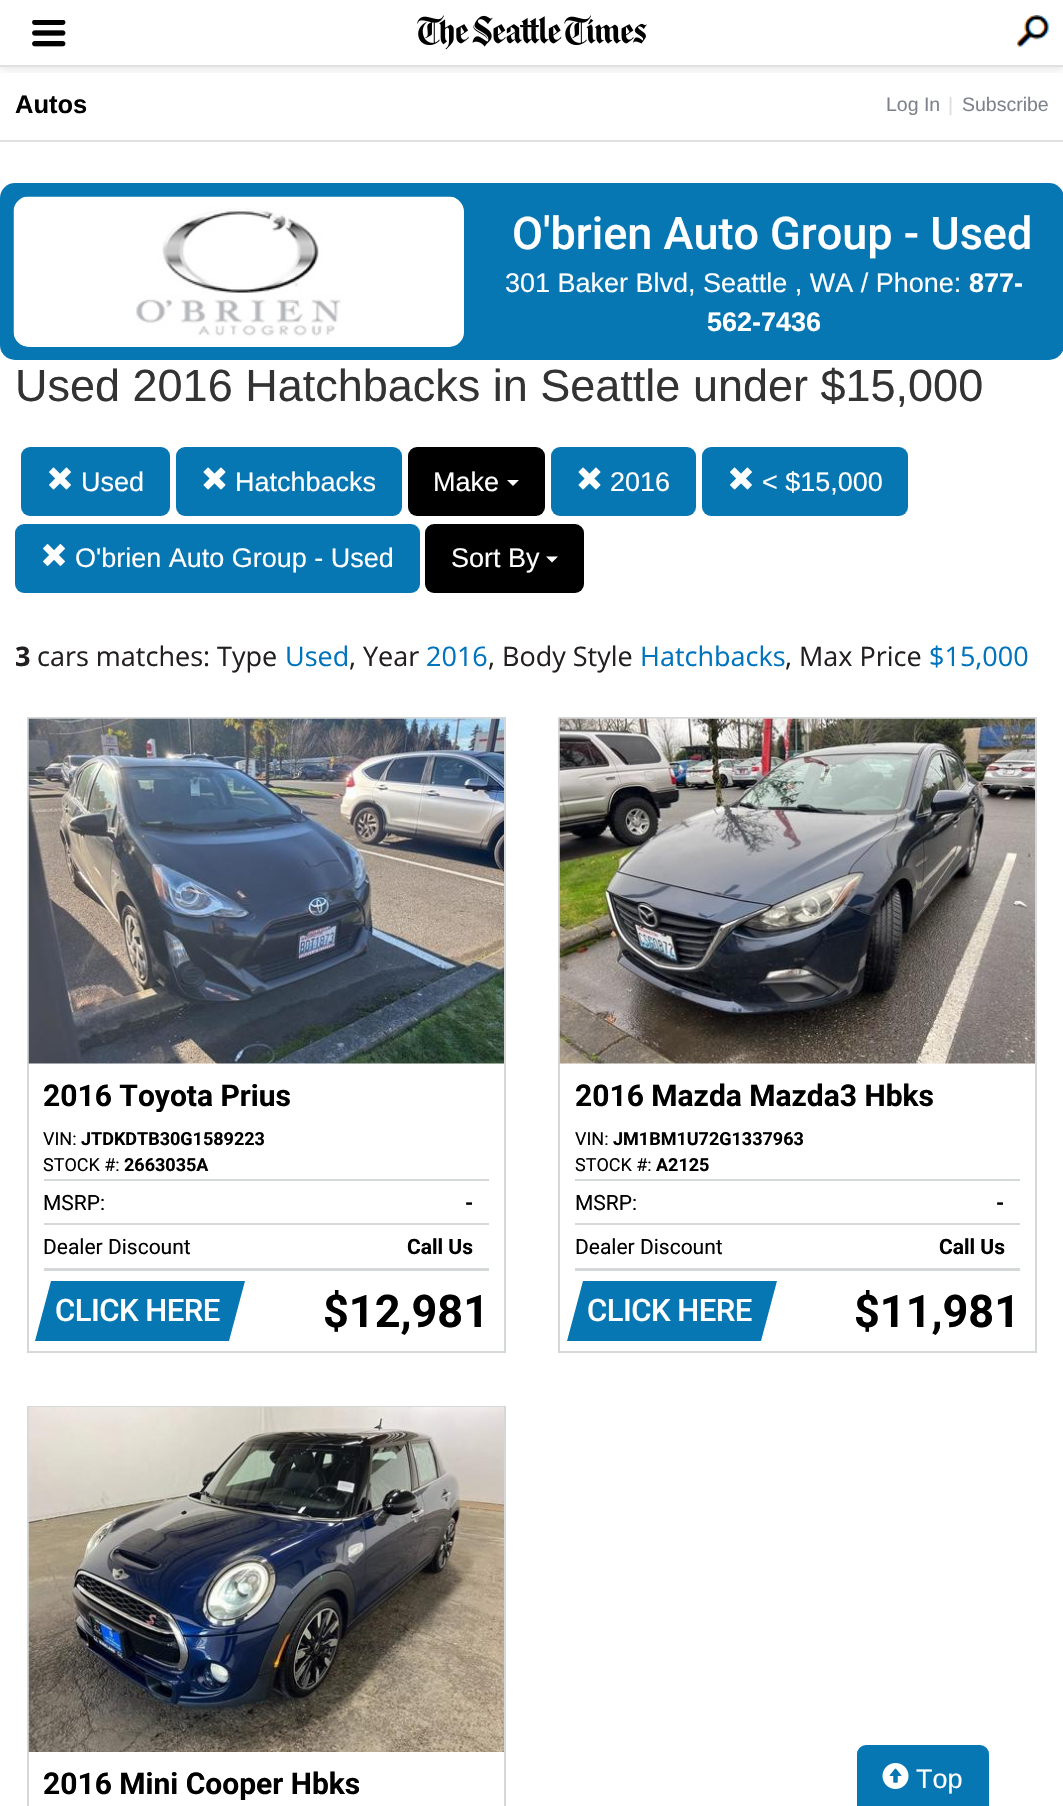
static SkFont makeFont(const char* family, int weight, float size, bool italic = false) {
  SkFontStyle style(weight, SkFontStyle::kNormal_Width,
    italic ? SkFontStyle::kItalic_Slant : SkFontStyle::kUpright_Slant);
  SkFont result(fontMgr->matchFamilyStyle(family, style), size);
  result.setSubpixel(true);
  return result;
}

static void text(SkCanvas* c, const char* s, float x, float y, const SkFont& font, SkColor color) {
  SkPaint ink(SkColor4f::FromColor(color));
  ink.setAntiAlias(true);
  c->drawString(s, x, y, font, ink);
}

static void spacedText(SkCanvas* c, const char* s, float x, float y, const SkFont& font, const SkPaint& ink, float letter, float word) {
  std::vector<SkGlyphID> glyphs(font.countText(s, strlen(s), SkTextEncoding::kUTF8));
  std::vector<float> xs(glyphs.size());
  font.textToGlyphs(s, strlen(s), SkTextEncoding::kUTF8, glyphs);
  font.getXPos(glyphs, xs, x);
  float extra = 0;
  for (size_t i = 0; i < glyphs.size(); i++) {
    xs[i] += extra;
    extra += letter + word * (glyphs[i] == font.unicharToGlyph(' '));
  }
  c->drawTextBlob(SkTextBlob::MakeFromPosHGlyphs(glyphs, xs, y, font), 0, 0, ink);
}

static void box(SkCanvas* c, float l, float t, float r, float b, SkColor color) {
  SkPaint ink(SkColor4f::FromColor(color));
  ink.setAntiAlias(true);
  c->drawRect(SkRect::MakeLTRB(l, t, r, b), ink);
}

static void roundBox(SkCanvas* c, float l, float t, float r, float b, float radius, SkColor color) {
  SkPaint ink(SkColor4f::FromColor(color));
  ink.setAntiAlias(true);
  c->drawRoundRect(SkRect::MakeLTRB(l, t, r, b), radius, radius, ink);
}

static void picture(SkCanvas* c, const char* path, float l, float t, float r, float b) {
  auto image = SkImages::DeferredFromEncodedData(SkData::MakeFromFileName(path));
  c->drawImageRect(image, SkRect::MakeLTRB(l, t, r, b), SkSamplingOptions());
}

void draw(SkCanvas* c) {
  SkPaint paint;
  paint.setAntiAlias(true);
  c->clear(0xffffffff);
  c->save();
  c->clipRect(SkRect::MakeLTRB(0, 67, 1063, 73));
  paint.setColor(0x1a000000);
  paint.setMaskFilter(SkMaskFilter::MakeBlur(kNormal_SkBlurStyle, 5));
  c->drawRect(SkRect::MakeLTRB(0, 3, 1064, 69), paint);
  paint.setMaskFilter(nullptr);
  c->restore();
  box(c, 0, 65, 1063, 67, 0xffe0e0e0);
  picture(c, "img_01.png", 32, 20, 66, 47);
  picture(c, "img_02.png", 417, 15, 647, 50);
  picture(c, "img_03.png", 1017, 15, 1049, 47);
  box(c, 0, 140, 1063, 142, 0xffe0e0e0);
  SkFont face1 = makeFont("Liberation Sans", 700, 25.5f);
  text(c, "Autos", 15, 113, face1, 0xff000000);
  SkFont face2 = makeFont("Liberation Sans", 400, 19.5f);
  text(c, "Log In", 886, 111, face2, 0xff7e838b);
  text(c, "|", 948, 111, face2, 0xffe0e0e0);
  text(c, "Subscribe", 962, 111, face2, 0xff7e838b);
  roundBox(c, 0, 183, 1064, 360, 15, 0xff0777b3);
  roundBox(c, 14, 197, 464, 347, 15, 0xffffffff);
  picture(c, "img_04.png", 13, 196, 464, 347);
  SkFont face3 = makeFont("Roboto", 500, 45);
  text(c, "O'brien Auto Group - Used", 512, 249, face3, 0xffffffff);
  SkFont face4 = makeFont("Liberation Sans", 400, 27);
  text(c, "301 Baker Blvd, Seattle , WA / Phone:", 505, 292, face4, 0xffffffff);
  SkFont face5 = makeFont("Liberation Sans", 700, 27);
  text(c, "877-", 969, 292, face5, 0xffffffff);
  text(c, "562-7436", 707, 331, face5, 0xffffffff);
  SkFont face6 = makeFont("Liberation Sans", 400, 45);
  text(c, "Used 2016 Hatchbacks in Seattle under $15,000", 15, 401, face6, 0xff333333);
  roundBox(c, 21, 447, 170, 516, 9, 0xff0777b3);
  picture(c, "img_05.png", 49, 467, 71, 490);
  text(c, "Used", 81, 491, face4, 0xffffffff);
  roundBox(c, 176, 447, 402, 516, 9, 0xff0777b3);
  picture(c, "img_06.png", 203, 467, 226, 490);
  text(c, "Hatchbacks", 235, 491, face4, 0xffffffff);
  roundBox(c, 408, 447, 545, 516, 9, 0xff000000);
  text(c, "Make", 433, 491, face4, 0xffffffff);
  paint.setColor(0xffffffff);
  c->drawPath(SkPathBuilder().moveTo(507, 480).lineTo(519, 480).lineTo(513, 486).close().detach(), paint);
  roundBox(c, 551, 447, 696, 516, 9, 0xff0777b3);
  picture(c, "img_06.png", 578, 467, 601, 490);
  text(c, "2016", 610, 491, face4, 0xffffffff);
  roundBox(c, 702, 447, 908, 516, 9, 0xff0777b3);
  picture(c, "img_05.png", 730, 467, 752, 490);
  text(c, "< $15,000", 762, 491, face4, 0xffffffff);
  roundBox(c, 15, 524, 420, 593, 9, 0xff0777b3);
  picture(c, "img_07.png", 43, 544, 65, 566);
  text(c, "O'brien Auto Group - Used", 75, 567, face4, 0xffffffff);
  roundBox(c, 425, 524, 584, 593, 9, 0xff000000);
  text(c, "Sort By", 451, 567, face4, 0xffffffff);
  c->drawPath(SkPathBuilder().moveTo(546, 556.5f).lineTo(558, 556.5f).lineTo(552, 562.5f).close().detach(), paint);
  SkFont face7 = makeFont("Open Sans", 700, 27);
  text(c, "3", 15, 666, face7, 0xff231f20);
  SkFont face8 = makeFont("Open Sans", 400, 27);
  text(c, "cars matches: Type", 37, 666, face8, 0xff231f20);
  text(c, "Used", 285, 666, face8, 0xff0073bd);
  text(c, ", Year", 349, 666, face8, 0xff231f20);
  text(c, "2016", 426, 666, face8, 0xff0073bd);
  text(c, ", Body Style", 488, 666, face8, 0xff231f20);
  text(c, "Hatchbacks", 640, 666, face8, 0xff0073bd);
  text(c, ", Max Price", 785, 666, face8, 0xff231f20);
  text(c, "$15,000", 929, 666, face8, 0xff0073bd);
  paint.setStyle(SkPaint::kStroke_Style);
  paint.setStrokeWidth(2);
  paint.setColor(0xffd4d8d9);
  c->drawRect(SkRect::MakeLTRB(28, 718, 505, 1352), paint);
  picture(c, "img_08.png", 28, 718, 504, 1064);
  c->save();
  c->clipRect(SkRect::MakeLTRB(44, 1079, 291, 1112));
  SkFont face9 = makeFont("Roboto", 700, 30);
  text(c, "2016 Toyota Prius", 43, 1106, face9, 0xff000000);
  c->restore();
  SkFont face10 = makeFont("Roboto", 400, 18);
  text(c, "VIN:", 43, 1145, face10, 0xff000000);
  SkFont face11 = makeFont("Roboto", 700, 18);
  text(c, "JTDKDTB30G1589223", 81, 1145, face11, 0xff000000);
  text(c, "STOCK #:", 43, 1171, face10, 0xff000000);
  text(c, "2663035A", 124, 1171, face11, 0xff000000);
  box(c, 44, 1179, 489, 1181, 0xffd4d8d9);
  box(c, 44, 1223, 489, 1225, 0xffd4d8d9);
  SkFont face12 = makeFont("Roboto", 400, 21);
  text(c, "MSRP:", 43, 1210, face12, 0xff000000);
  SkFont face13 = makeFont("Roboto", 700, 21);
  text(c, "-", 465, 1210, face13, 0xff000000);
  box(c, 44, 1268, 489, 1271, 0xffd4d8d9);
  text(c, "Dealer Discount", 43, 1254, face12, 0xff000000);
  text(c, "Call Us", 407, 1254, face13, 0xff000000);
  paint.setStyle(SkPaint::kFill_Style);
  paint.setColor(0xff0777b3);
  c->drawPath(SkPathBuilder().moveTo(51, 1281).lineTo(245, 1281).lineTo(229, 1341).lineTo(35, 1341).close().detach(), paint);
  SkFont face14 = makeFont("Roboto", 500, 31);
  paint.setColor(0xffffffff);
  spacedText(c, "CLICK HERE", 55, 1321, face14, paint, -0.5f, 0);
  SkFont face15 = makeFont("Roboto", 700, 45);
  text(c, "$12,981", 323, 1327, face15, 0xff000000);
  paint.setStyle(SkPaint::kStroke_Style);
  paint.setColor(0xffd4d8d9);
  c->drawRect(SkRect::MakeLTRB(559, 718, 1036, 1352), paint);
  picture(c, "img_09.png", 559, 718, 1035, 1064);
  text(c, "2016 Mazda Mazda3 Hbks", 575, 1106, face9, 0xff000000);
  text(c, "VIN:", 575, 1145, face10, 0xff000000);
  text(c, "JM1BM1U72G1337963", 613, 1145, face11, 0xff000000);
  text(c, "STOCK #:", 575, 1171, face10, 0xff000000);
  text(c, "A2125", 656, 1171, face11, 0xff000000);
  box(c, 575, 1179, 1020, 1181, 0xffd4d8d9);
  box(c, 575, 1223, 1020, 1225, 0xffd4d8d9);
  text(c, "MSRP:", 575, 1210, face12, 0xff000000);
  text(c, "-", 996, 1210, face13, 0xff000000);
  box(c, 575, 1268, 1020, 1271, 0xffd4d8d9);
  text(c, "Dealer Discount", 575, 1254, face12, 0xff000000);
  text(c, "Call Us", 939, 1254, face13, 0xff000000);
  paint.setStyle(SkPaint::kFill_Style);
  paint.setColor(0xff0777b3);
  c->drawPath(SkPathBuilder().moveTo(583, 1281).lineTo(777, 1281).lineTo(761, 1341).lineTo(567, 1341).close().detach(), paint);
  paint.setColor(0xffffffff);
  spacedText(c, "CLICK HERE", 587, 1321, face14, paint, -0.5f, 0);
  text(c, "$11,981", 854, 1327, face15, 0xff000000);
  paint.setStyle(SkPaint::kStroke_Style);
  paint.setColor(0xffd4d8d9);
  c->drawRect(SkRect::MakeLTRB(28, 1407, 505, 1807), paint);
  picture(c, "img_10.png", 28, 1407, 504, 1752);
  c->save();
  c->clipRect(SkRect::MakeLTRB(44, 1767, 360, 1800));
  text(c, "2016 Mini Cooper Hbks", 43, 1794, face9, 0xff000000);
  c->restore();
  paint.setStyle(SkPaint::kFill_Style);
  paint.setColor(0xff0777b3);
  c->drawRoundRect(SkRect::MakeLTRB(858, 1746, 988, 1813), 8, 8, paint);
  paint.setStyle(SkPaint::kStroke_Style);
  c->drawRoundRect(SkRect::MakeLTRB(858, 1746, 988, 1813), 8, 8, paint);
  picture(c, "img_11.png", 882, 1763, 909, 1789);
  text(c, "Top", 916, 1788, face4, 0xffffffff);
}
